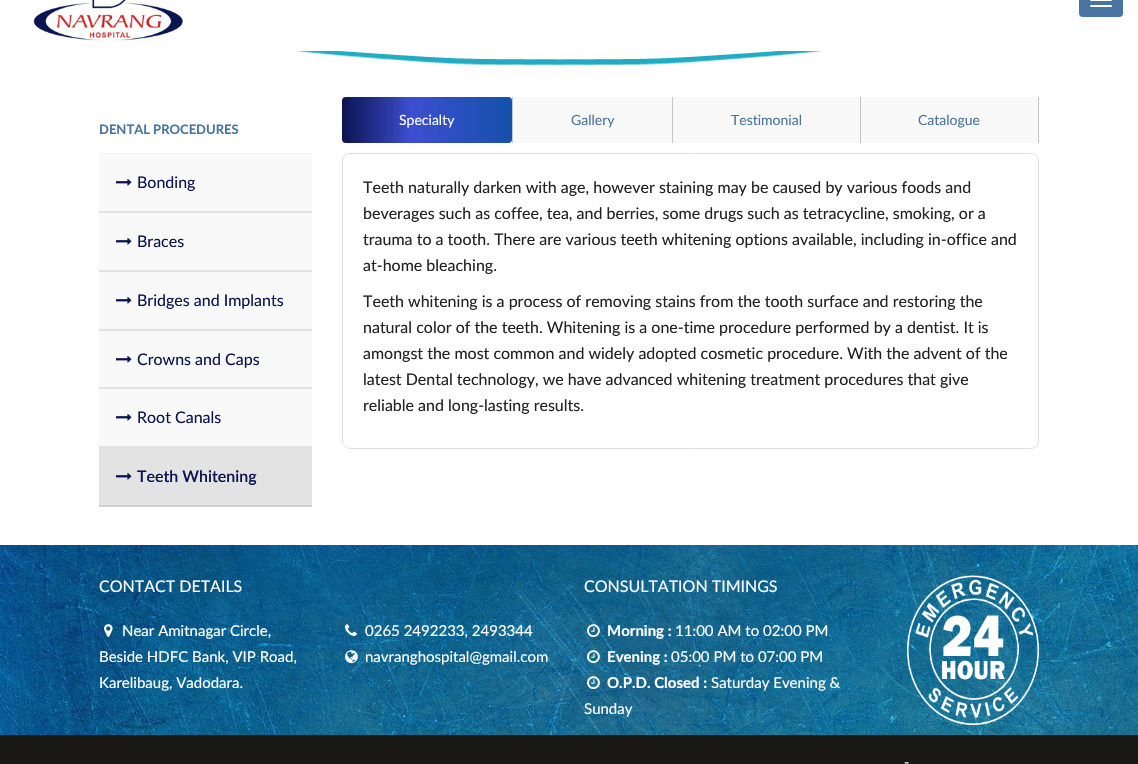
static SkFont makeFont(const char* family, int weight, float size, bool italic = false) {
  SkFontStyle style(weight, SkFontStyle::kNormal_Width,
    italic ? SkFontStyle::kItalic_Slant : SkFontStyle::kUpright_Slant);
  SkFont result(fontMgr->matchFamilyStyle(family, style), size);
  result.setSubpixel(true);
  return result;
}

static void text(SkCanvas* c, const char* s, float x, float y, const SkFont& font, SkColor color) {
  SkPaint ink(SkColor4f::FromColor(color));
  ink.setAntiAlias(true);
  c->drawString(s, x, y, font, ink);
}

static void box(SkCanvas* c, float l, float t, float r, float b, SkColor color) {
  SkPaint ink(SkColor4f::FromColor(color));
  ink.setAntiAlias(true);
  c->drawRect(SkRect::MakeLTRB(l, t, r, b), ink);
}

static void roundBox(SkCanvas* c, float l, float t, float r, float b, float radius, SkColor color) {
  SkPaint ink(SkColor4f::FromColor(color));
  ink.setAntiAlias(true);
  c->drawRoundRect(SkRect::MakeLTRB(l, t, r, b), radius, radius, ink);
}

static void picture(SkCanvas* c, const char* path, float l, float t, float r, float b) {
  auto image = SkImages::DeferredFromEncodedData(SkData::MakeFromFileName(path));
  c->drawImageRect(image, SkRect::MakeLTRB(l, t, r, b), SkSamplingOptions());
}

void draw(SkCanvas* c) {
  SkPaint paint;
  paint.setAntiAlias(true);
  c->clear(0xffffffff);
  picture(c, "img_01.png", 33, 0, 183, 41);
  roundBox(c, 1079, -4, 1123, 17, 4, 0xff4974a1);
  roundBox(c, 1090, -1, 1112, 1, 1, 0xffffffff);
  roundBox(c, 1090, 5, 1112, 7, 1, 0xffffffff);
  picture(c, "img_02.png", 294, 51, 824, 66);
  box(c, 99, 153, 312, 154, 0xfff2f2f2);
  SkFont face1 = makeFont("Lato", 700, 13);
  text(c, "DENTAL PROCEDURES", 99, 134, face1, 0xff4974a1);
  box(c, 99, 505, 312, 507, 0xffd0cece);
  box(c, 99, 154, 312, 211, 0xfff9f9f9);
  box(c, 99, 211, 312, 213, 0xffe1e1e1);
  picture(c, "img_03.png", 116, 178, 132, 186);
  SkFont face2 = makeFont("Lato", 400, 16);
  text(c, "Bonding", 137, 188, face2, 0xff0a1450);
  box(c, 99, 213, 312, 270, 0xfff9f9f9);
  box(c, 99, 270, 312, 272, 0xffe1e1e1);
  picture(c, "img_03.png", 116, 237, 132, 245);
  text(c, "Braces", 137, 247, face2, 0xff0a1450);
  box(c, 99, 272, 312, 329, 0xfff9f9f9);
  box(c, 99, 329, 312, 331, 0xffe1e1e1);
  picture(c, "img_03.png", 116, 296, 132, 304);
  text(c, "Bridges and Implants", 137, 306, face2, 0xff0a1450);
  box(c, 99, 331, 312, 387, 0xfff9f9f9);
  box(c, 99, 387, 312, 389, 0xffe1e1e1);
  picture(c, "img_03.png", 116, 355, 132, 363);
  text(c, "Crowns and Caps", 137, 365, face2, 0xff0a1450);
  box(c, 99, 389, 312, 446, 0xfff9f9f9);
  box(c, 99, 446, 312, 448, 0xffe1e1e1);
  picture(c, "img_03.png", 116, 413, 132, 421);
  text(c, "Root Canals", 137, 423, face2, 0xff0a1450);
  box(c, 99, 448, 312, 505, 0xffe3e3e3);
  picture(c, "img_04.png", 116, 472, 132, 480);
  SkFont face3 = makeFont("Lato", 600, 16);
  text(c, "Teeth Whitening", 137, 482, face3, 0xff0a1450);
  box(c, 342, 97, 512, 143, 0xfff9f9f9);
  box(c, 512, 97, 513, 143, 0xffc6c6c6);
  {
    const SkColor colors[] = {0xff0a1450, 0xff3e4ed1, 0xff1451aa};
    const float stops[] = {0, 0.41f, 1};
    const SkPoint ends[] = {{342, 120}, {512, 120}};
    paint.setShader(SkGradientShader::MakeLinear(ends, colors, stops, 3, SkTileMode::kClamp));
    paint.setAlpha(255);
  }
  c->drawRoundRect(SkRect::MakeLTRB(342, 97, 512, 143), 4, 4, paint);
  SkFont face4 = makeFont("Lato", 400, 14);
  text(c, "Specialty", 399, 125, face4, 0xffffffff);
  box(c, 513, 97, 672, 143, 0xfff9f9f9);
  box(c, 672, 97, 673, 143, 0xffc6c6c6);
  text(c, "Gallery", 571, 125, face4, 0xff4974a1);
  box(c, 673, 97, 860, 143, 0xfff9f9f9);
  box(c, 860, 97, 861, 143, 0xffc6c6c6);
  text(c, "Testimonial", 731, 125, face4, 0xff4974a1);
  box(c, 861, 97, 1038, 143, 0xfff9f9f9);
  box(c, 1038, 97, 1039, 143, 0xffc6c6c6);
  text(c, "Catalogue", 918, 125, face4, 0xff4974a1);
  paint.setStyle(SkPaint::kStroke_Style);
  paint.setStrokeWidth(1);
  paint.setShader(nullptr);
  paint.setColor(0xffe1e0e0);
  c->drawRoundRect(SkRect::MakeLTRB(342.5f, 153.5f, 1038.5f, 448.5f), 7.5f, 7.5f, paint);
  text(c, "Teeth naturally darken with age, however staining may be caused by various foods and", 363, 193, face2, 0xff222222);
  text(c, "beverages such as coffee, tea, and berries, some drugs such as tetracycline, smoking, or a", 363, 219, face2, 0xff222222);
  text(c, "trauma to a tooth. There are various teeth whitening options available, including in-office and", 363, 245, face2, 0xff222222);
  text(c, "at-home bleaching.", 363, 271, face2, 0xff222222);
  text(c, "Teeth whitening is a process of removing stains from the tooth surface and restoring the", 363, 307, face2, 0xff222222);
  text(c, "natural color of the teeth. Whitening is a one-time procedure performed by a dentist. It is", 363, 333, face2, 0xff222222);
  text(c, "amongst the most common and widely adopted cosmetic procedure. With the advent of the", 363, 359, face2, 0xff222222);
  text(c, "latest Dental technology, we have advanced whitening treatment procedures that give", 363, 385, face2, 0xff222222);
  text(c, "reliable and long-lasting results.", 363, 411, face2, 0xff222222);
  picture(c, "img_05.png", 0, 545, 1138, 735);
  text(c, "CONTACT DETAILS", 99, 592, face2, 0xffffffff);
  picture(c, "img_06.png", 104, 624, 113, 637);
  SkFont face5 = makeFont("Lato", 400, 15);
  text(c, "Near Amitnagar Circle,", 122, 636, face5, 0xffffffff);
  text(c, "Beside HDFC Bank, VIP Road,", 99, 662, face5, 0xffffffff);
  text(c, "Karelibaug, Vadodara.", 99, 688, face5, 0xffffffff);
  picture(c, "img_07.png", 345, 624, 357, 636);
  text(c, "0265 2492233, 2493344", 365, 636, face5, 0xffffffff);
  picture(c, "img_08.png", 345, 650, 358, 664);
  text(c, "navranghospital@gmail.com", 365, 662, face5, 0xffffffff);
  text(c, "CONSULTATION TIMINGS", 584, 592, face2, 0xffffffff);
  picture(c, "img_09.png", 587, 624, 600, 638);
  SkFont face6 = makeFont("Lato", 700, 15);
  text(c, "Morning :", 607, 636, face6, 0xffffffff);
  text(c, "11:00 AM to 02:00 PM", 675, 636, face5, 0xffffffff);
  picture(c, "img_10.png", 587, 650, 600, 664);
  text(c, "Evening :", 607, 662, face6, 0xffffffff);
  text(c, "05:00 PM to 07:00 PM", 671, 662, face5, 0xffffffff);
  picture(c, "img_11.png", 587, 676, 600, 690);
  text(c, "O.P.D. Closed :", 607, 688, face6, 0xffffffff);
  text(c, "Saturday Evening &", 711, 688, face5, 0xffffffff);
  text(c, "Sunday", 584, 714, face5, 0xffffffff);
  picture(c, "img_12.png", 907, 575, 1039, 725);
  box(c, 0, 735, 1138, 764, 0xff191814);
  text(c, "-", 904, 767, face4, 0xffffffff);
}
